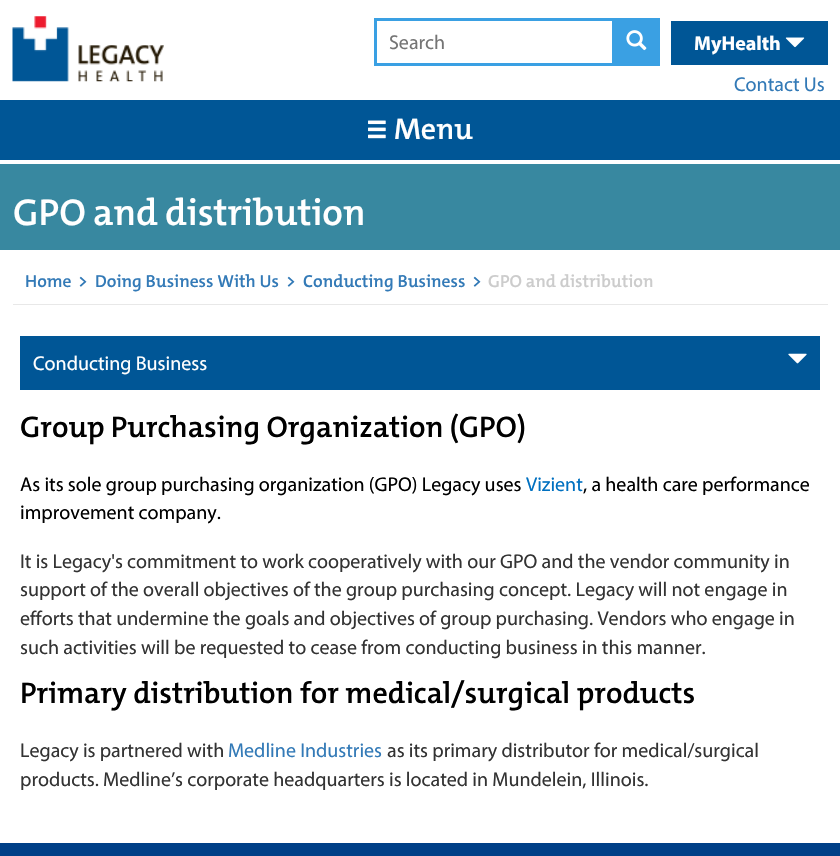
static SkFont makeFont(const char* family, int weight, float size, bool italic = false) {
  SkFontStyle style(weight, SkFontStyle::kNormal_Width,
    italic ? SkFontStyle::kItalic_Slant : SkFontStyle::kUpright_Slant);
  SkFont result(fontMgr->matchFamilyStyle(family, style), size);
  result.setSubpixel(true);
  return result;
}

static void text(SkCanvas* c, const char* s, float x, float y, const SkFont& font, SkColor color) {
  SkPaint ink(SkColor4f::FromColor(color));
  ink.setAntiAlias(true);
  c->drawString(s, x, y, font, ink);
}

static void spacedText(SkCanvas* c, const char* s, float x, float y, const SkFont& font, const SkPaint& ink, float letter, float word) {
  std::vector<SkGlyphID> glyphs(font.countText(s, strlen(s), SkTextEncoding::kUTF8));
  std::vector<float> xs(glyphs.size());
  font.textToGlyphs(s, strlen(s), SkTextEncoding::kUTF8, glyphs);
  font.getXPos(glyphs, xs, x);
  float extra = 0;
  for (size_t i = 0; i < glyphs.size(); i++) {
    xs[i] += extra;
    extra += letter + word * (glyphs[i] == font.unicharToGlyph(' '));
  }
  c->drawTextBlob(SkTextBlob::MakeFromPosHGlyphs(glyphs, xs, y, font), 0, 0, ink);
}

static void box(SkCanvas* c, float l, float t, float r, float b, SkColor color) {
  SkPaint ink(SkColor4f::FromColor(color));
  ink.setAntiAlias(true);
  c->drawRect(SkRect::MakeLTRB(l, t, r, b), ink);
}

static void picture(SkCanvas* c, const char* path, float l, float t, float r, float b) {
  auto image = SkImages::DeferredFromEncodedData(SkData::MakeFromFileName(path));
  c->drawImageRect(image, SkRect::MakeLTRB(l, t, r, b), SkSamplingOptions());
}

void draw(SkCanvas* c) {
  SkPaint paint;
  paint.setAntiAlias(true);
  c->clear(0xffffffff);
  picture(c, "img_01.png", 12, 16, 164, 82);
  paint.setStyle(SkPaint::kStroke_Style);
  paint.setStrokeWidth(3);
  paint.setColor(0xff3aa0e3);
  c->drawRect(SkRect::MakeLTRB(375.5f, 19.5f, 613.5f, 64.5f), paint);
  SkFont face1 = makeFont("Myriad", 400, 20);
  text(c, "Search", 389, 49, face1, 0xff757575);
  box(c, 615, 18, 660, 66, 0xff3aa0e3);
  picture(c, "img_02.png", 626, 30, 647, 51);
  box(c, 671, 21, 828, 65, 0xff005696);
  SkFont face2 = makeFont("Myriad", 700, 20);
  text(c, "MyHealth", 694, 50, face2, 0xffffffff);
  picture(c, "img_03.png", 785, 37, 805, 48);
  text(c, "Contact Us", 734, 91, face1, 0xff337ab7);
  box(c, 0, 100, 840, 160, 0xff005696);
  picture(c, "img_04.png", 368, 120, 386, 139);
  SkFont face3 = makeFont("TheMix", 600, 30);
  text(c, "Menu", 394, 139, face3, 0xffffffff);
  box(c, 0, 164, 840, 250, 0xff3888a0);
  SkFont face4 = makeFont("TheMix", 600, 37.5f);
  paint.setStyle(SkPaint::kFill_Style);
  paint.setColor(0xffffffff);
  spacedText(c, "GPO and distribution", 13, 225, face4, paint, 0, -1);
  box(c, 13, 304, 828, 305, 0xffe8e8e8);
  SkFont face5 = makeFont("TheMix", 600, 17.5f);
  text(c, "Home", 25, 287, face5, 0xff337ab7);
  text(c, ">", 78, 287, face5, 0xff337ab7);
  text(c, "Doing Business With Us", 95, 287, face5, 0xff337ab7);
  text(c, ">", 286, 287, face5, 0xff337ab7);
  text(c, "Conducting Business", 303, 287, face5, 0xff337ab7);
  text(c, ">", 472, 287, face5, 0xff337ab7);
  text(c, "GPO and distribution", 488, 287, face5, 0xffcccccc);
  box(c, 20, 336, 820, 390, 0xff005696);
  text(c, "Conducting Business", 33, 370, face1, 0xffffffff);
  picture(c, "img_05.png", 788, 353, 807, 364);
  paint.setColor(0xff000000);
  spacedText(c, "Group Purchasing Organization (GPO)", 20, 437, face3, paint, 0, -0.5f);
  text(c, "As its sole group purchasing organization (GPO) Legacy uses", 20, 491, face1, 0xff000000);
  text(c, "Vizient", 526, 491, face1, 0xff0070c0);
  text(c, ", a health care performance", 583, 491, face1, 0xff000000);
  text(c, "improvement company.", 20, 519, face1, 0xff000000);
  text(c, "It is Legacy's commitment to work cooperatively with our GPO and the vendor community in", 20, 568, face1, 0xff333333);
  text(c, "support of the overall objectives of the group purchasing concept. Legacy will not engage in", 20, 596, face1, 0xff333333);
  text(c, "efforts that undermine the goals and objectives of group purchasing. Vendors who engage in", 20, 625, face1, 0xff333333);
  text(c, "such activities will be requested to cease from conducting business in this manner.", 20, 654, face1, 0xff333333);
  text(c, "Primary distribution for medical/surgical products", 20, 703, face3, 0xff000000);
  text(c, "Legacy is partnered with", 20, 757, face1, 0xff333333);
  text(c, "Medline Industries", 228, 757, face1, 0xff337ab7);
  text(c, "as its primary distributor for medical/surgical", 387, 757, face1, 0xff333333);
  text(c, "products. Medline’s corporate headquarters is located in Mundelein, Illinois.", 20, 786, face1, 0xff333333);
  box(c, 0, 843, 840, 856, 0xff003f87);
}
